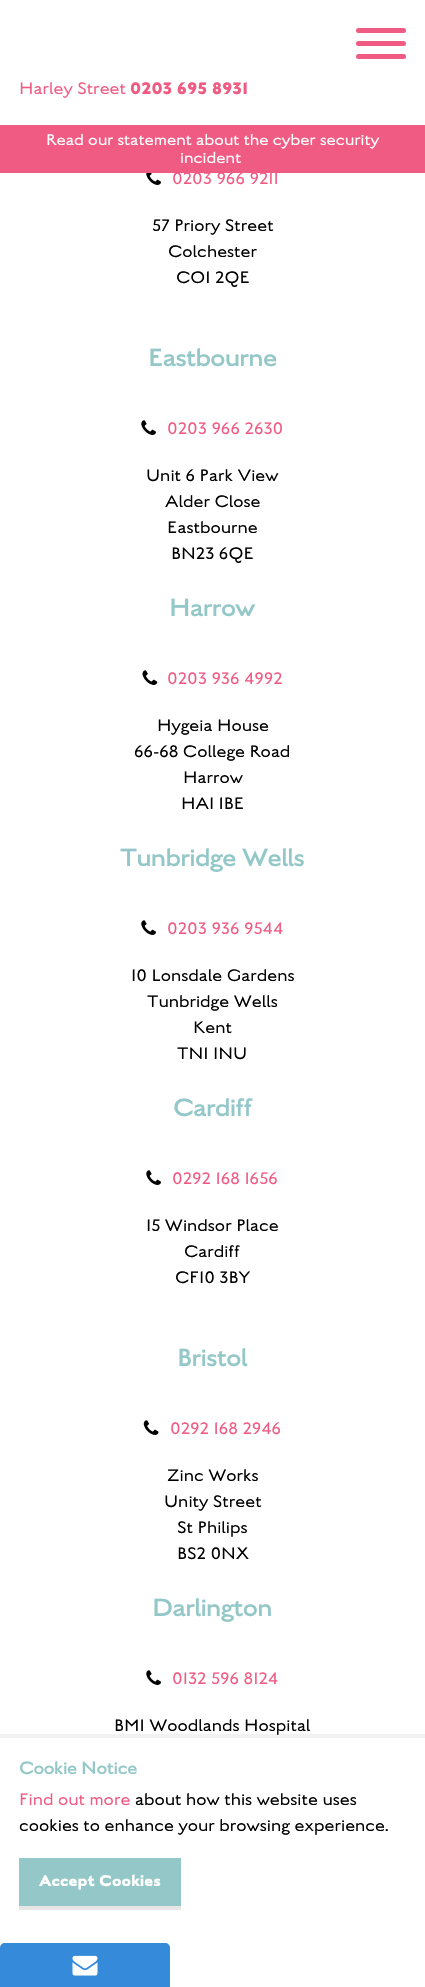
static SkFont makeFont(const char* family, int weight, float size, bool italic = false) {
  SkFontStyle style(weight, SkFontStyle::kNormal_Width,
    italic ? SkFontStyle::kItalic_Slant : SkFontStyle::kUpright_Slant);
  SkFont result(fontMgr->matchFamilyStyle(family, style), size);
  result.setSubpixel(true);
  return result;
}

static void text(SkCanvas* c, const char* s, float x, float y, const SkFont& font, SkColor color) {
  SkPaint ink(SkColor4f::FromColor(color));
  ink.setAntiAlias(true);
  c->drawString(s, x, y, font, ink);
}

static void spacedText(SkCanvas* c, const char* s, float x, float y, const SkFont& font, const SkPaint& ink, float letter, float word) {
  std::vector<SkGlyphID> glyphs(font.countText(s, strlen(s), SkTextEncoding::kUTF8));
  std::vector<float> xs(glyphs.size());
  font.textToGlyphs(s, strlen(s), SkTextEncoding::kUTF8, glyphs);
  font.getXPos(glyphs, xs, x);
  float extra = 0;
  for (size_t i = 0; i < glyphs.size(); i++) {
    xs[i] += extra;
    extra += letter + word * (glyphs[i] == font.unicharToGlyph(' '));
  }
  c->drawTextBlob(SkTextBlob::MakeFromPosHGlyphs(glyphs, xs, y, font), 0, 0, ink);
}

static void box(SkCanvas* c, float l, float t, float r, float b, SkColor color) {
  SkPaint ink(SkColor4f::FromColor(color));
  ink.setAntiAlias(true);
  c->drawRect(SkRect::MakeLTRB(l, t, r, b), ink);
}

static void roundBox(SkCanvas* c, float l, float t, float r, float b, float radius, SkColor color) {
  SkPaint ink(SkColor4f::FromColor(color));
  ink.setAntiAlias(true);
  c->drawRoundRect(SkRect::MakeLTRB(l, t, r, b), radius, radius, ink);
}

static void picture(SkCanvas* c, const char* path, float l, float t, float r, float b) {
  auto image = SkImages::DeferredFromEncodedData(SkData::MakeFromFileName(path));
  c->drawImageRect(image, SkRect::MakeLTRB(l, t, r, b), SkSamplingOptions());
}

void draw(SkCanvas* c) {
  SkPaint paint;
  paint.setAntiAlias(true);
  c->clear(0xffffffff);
  roundBox(c, 356, 28, 406, 33, 2.5f, 0xfff05b83);
  roundBox(c, 356, 41, 406, 46, 2.5f, 0xfff05b83);
  roundBox(c, 356, 54, 406, 59, 2.5f, 0xfff05b83);
  SkFont face1 = makeFont("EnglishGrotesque", 100, 18.75f);
  text(c, "Harley Street", 19, 94, face1, 0xfff05b83);
  SkFont face2 = makeFont("EnglishGrotesque", 700, 18.75f);
  text(c, "0203 695 8931", 130, 94, face2, 0xfff05b83);
  box(c, 0, 125, 425, 173, 0xfff05b83);
  SkFont face3 = makeFont("EnglishGrotesque", 100, 17.5f);
  text(c, "Read our statement about the cyber security", 46, 145, face3, 0xffffffff);
  text(c, "incident", 180, 163, face3, 0xffffffff);
  picture(c, "img_01.png", 146, 173, 161, 185);
  text(c, "0203 966 9211", 172, 184, face1, 0xfff05b83);
  text(c, "57 Priory Street", 152, 231, face1, 0xff000000);
  text(c, "Colchester", 168, 257, face1, 0xff000000);
  text(c, "CO1 2QE", 176, 283, face1, 0xff000000);
  SkFont face4 = makeFont("EnglishGrotesque", 300, 28);
  paint.setColor(0xff94c7c8);
  spacedText(c, "Eastbourne", 148, 366, face4, paint, -0.75f, 0);
  picture(c, "img_02.png", 141, 420, 156, 435);
  text(c, "0203 966 2630", 167, 434, face1, 0xfff05b83);
  text(c, "Unit 6 Park View", 146, 481, face1, 0xff000000);
  text(c, "Alder Close", 165, 507, face1, 0xff000000);
  text(c, "Eastbourne", 167, 533, face1, 0xff000000);
  text(c, "BN23 6QE", 171, 559, face1, 0xff000000);
  spacedText(c, "Harrow", 169, 616, face4, paint, -0.75f, 0);
  picture(c, "img_03.png", 142, 670, 158, 685);
  text(c, "0203 936 4992", 167, 684, face1, 0xfff05b83);
  text(c, "Hygeia House", 157, 731, face1, 0xff000000);
  text(c, "66-68 College Road", 134, 757, face1, 0xff000000);
  text(c, "Harrow", 183, 783, face1, 0xff000000);
  text(c, "HA1 1BE", 181, 809, face1, 0xff000000);
  spacedText(c, "Tunbridge Wells", 120, 866, face4, paint, -0.75f, 0);
  picture(c, "img_02.png", 141, 920, 156, 935);
  text(c, "0203 936 9544", 167, 934, face1, 0xfff05b83);
  text(c, "10 Lonsdale Gardens", 131, 981, face1, 0xff000000);
  text(c, "Tunbridge Wells", 147, 1007, face1, 0xff000000);
  text(c, "Kent", 193, 1033, face1, 0xff000000);
  text(c, "TN1 1NU", 177, 1059, face1, 0xff000000);
  spacedText(c, "Cardiff", 173, 1116, face4, paint, -0.75f, 0);
  picture(c, "img_02.png", 146, 1170, 161, 1185);
  text(c, "0292 168 1656", 172, 1184, face1, 0xfff05b83);
  text(c, "15 Windsor Place", 146, 1231, face1, 0xff000000);
  text(c, "Cardiff", 184, 1257, face1, 0xff000000);
  text(c, "CF10 3BY", 175, 1283, face1, 0xff000000);
  spacedText(c, "Bristol", 177, 1366, face4, paint, -0.75f, 0);
  picture(c, "img_04.png", 143, 1420, 159, 1435);
  text(c, "0292 168 2946", 170, 1434, face1, 0xfff05b83);
  text(c, "Zinc Works", 167, 1481, face1, 0xff000000);
  text(c, "Unity Street", 164, 1507, face1, 0xff000000);
  text(c, "St Philips", 177, 1533, face1, 0xff000000);
  text(c, "BS2 0NX", 177, 1559, face1, 0xff000000);
  spacedText(c, "Darlington", 152, 1616, face4, paint, -0.75f, 0);
  picture(c, "img_02.png", 146, 1670, 161, 1685);
  text(c, "0132 596 8124", 172, 1684, face1, 0xfff05b83);
  text(c, "BMI Woodlands Hospital", 114, 1731, face1, 0xff000000);
  box(c, 0, 1734, 425, 1738, 0x0d000000);
  SkFont face5 = makeFont("EnglishGrotesque", 300, 20);
  spacedText(c, "Cookie Notice", 19, 1774, face5, paint, -0.5f, 0);
  text(c, "Find out more", 19, 1805, face1, 0xfff05b83);
  text(c, "about how this website uses", 135, 1805, face1, 0xff000000);
  text(c, "cookies to enhance your browsing experience.", 19, 1831, face1, 0xff000000);
  box(c, 19, 1906, 181, 1910, 0xffe6e6e6);
  box(c, 19, 1858, 181, 1906, 0xff94c7c8);
  SkFont face6 = makeFont("EnglishGrotesque", 700, 17.5f);
  text(c, "Accept Cookies", 39, 1886, face6, 0xffffffff);
  paint.setColor(0xff358ad9);
  c->drawPath(SkPathBuilder().moveTo(5, 1943).lineTo(165, 1943).cubicTo(168, 1943, 170, 1945, 170, 1948).lineTo(170, 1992).lineTo(0, 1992).lineTo(0, 1948).cubicTo(0, 1945, 2, 1943, 5, 1943).close().detach(), paint);
  picture(c, "img_05.png", 72, 1955, 98, 1976);
}
